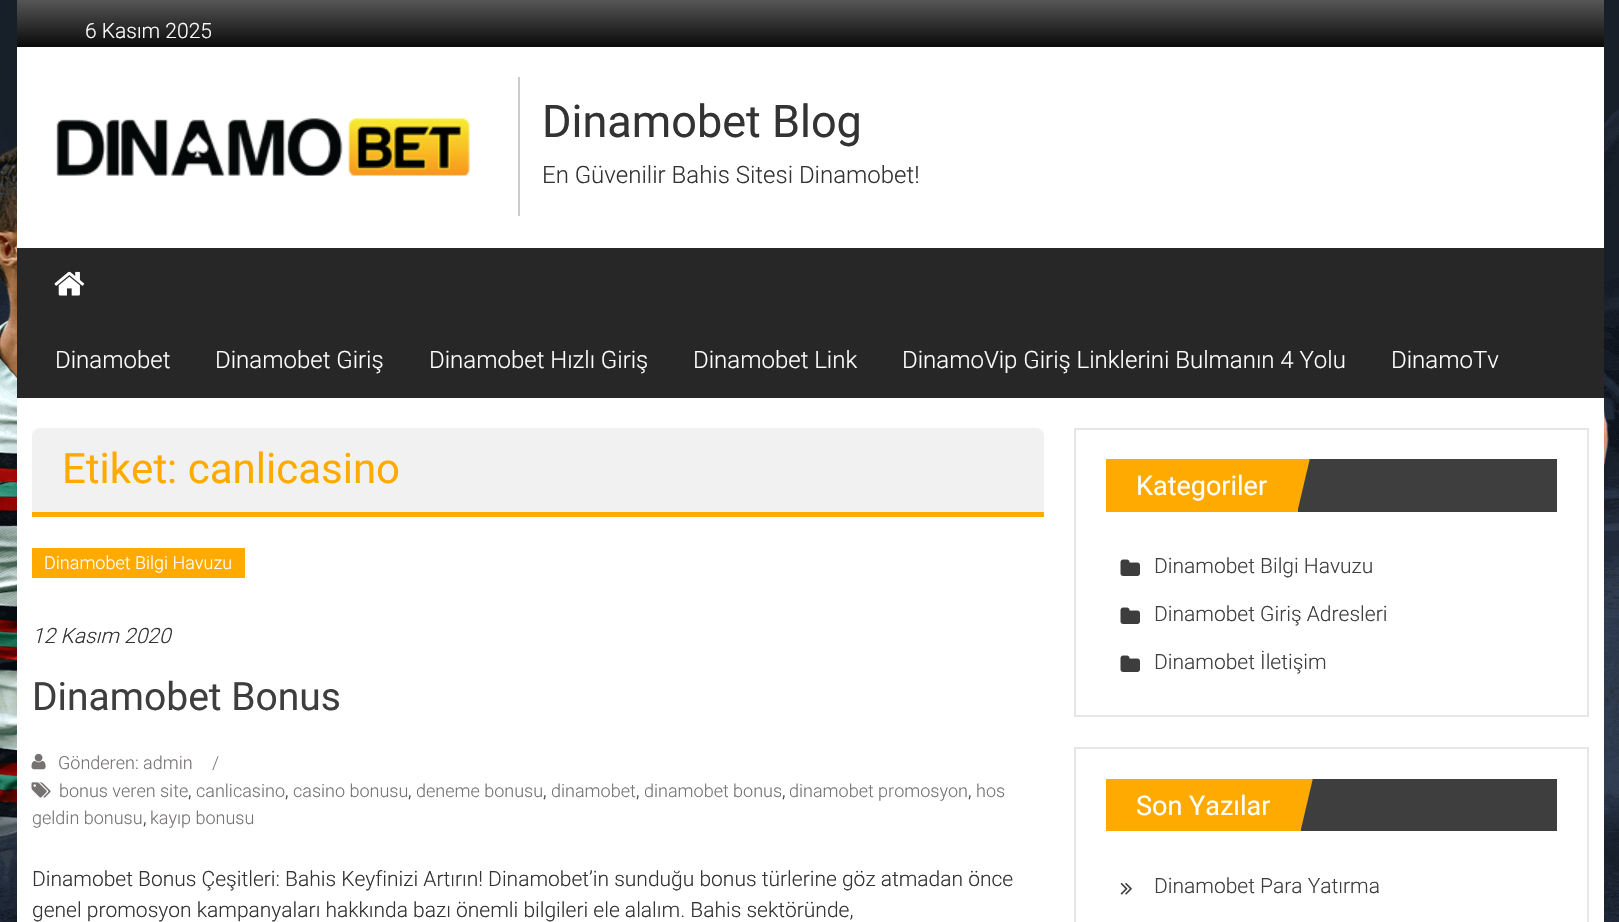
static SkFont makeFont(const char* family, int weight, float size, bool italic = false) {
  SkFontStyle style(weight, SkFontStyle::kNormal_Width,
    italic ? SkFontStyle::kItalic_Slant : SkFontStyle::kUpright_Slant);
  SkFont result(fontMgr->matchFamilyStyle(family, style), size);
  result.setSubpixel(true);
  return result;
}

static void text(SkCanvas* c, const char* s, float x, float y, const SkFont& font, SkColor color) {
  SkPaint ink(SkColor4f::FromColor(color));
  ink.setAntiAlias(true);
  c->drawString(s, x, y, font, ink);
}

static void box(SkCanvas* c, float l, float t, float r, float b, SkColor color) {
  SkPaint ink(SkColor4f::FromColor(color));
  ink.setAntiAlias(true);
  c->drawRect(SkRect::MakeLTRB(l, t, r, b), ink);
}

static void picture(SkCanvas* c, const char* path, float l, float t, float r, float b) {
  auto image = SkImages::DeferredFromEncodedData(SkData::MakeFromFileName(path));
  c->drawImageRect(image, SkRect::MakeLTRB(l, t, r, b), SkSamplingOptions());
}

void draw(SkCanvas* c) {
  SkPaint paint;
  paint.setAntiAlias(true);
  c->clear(0xffffffff);
  picture(c, "img_01.png", 0, 0, 1619, 922);
  box(c, 17, 47, 1604, 922, 0xffffffff);
  {
    const SkColor colors[] = {0xff565656, 0xff0a0a0a};
    const float stops[] = {0, 1};
    const SkPoint ends[] = {{810, 0}, {810, 47}};
    paint.setShader(SkGradientShader::MakeLinear(ends, colors, stops, 2, SkTileMode::kClamp));
    paint.setAlpha(255);
  }
  c->drawRect(SkRect::MakeLTRB(17, 0, 1604, 47), paint);
  SkFont face1 = makeFont("Roboto", 300, 21);
  text(c, "6 Kasım 2025", 85, 38, face1, 0xffffffff);
  picture(c, "img_02.png", 56, 118, 470, 176);
  box(c, 518, 77, 520, 216, 0xffcccccc);
  SkFont face2 = makeFont("Roboto", 400, 45);
  text(c, "Dinamobet Blog", 542, 137, face2, 0xff333333);
  SkFont face3 = makeFont("Roboto", 300, 24);
  text(c, "En Güvenilir Bahis Sitesi Dinamobet!", 542, 183, face3, 0xff333333);
  box(c, 17, 248, 1604, 398, 0xff272727);
  picture(c, "img_03.png", 54, 271, 85, 296);
  text(c, "Dinamobet", 55, 368, face3, 0xffffffff);
  text(c, "Dinamobet Giriş", 215, 368, face3, 0xffffffff);
  text(c, "Dinamobet Hızlı Giriş", 429, 368, face3, 0xffffffff);
  text(c, "Dinamobet Link", 693, 368, face3, 0xffffffff);
  text(c, "DinamoVip Giriş Linklerini Bulmanın 4 Yolu", 902, 368, face3, 0xffffffff);
  text(c, "DinamoTv", 1391, 368, face3, 0xffffffff);
  paint.setShader(nullptr);
  paint.setColor(0xfff1f1f1);
  c->drawPath(SkPathBuilder().moveTo(40, 428).lineTo(1036, 428).cubicTo(1040.5f, 428, 1044, 431.5f, 1044, 436).lineTo(1044, 516).lineTo(32, 516).lineTo(32, 436).cubicTo(32, 431.5f, 35.5f, 428, 40, 428).close().detach(), paint);
  box(c, 32, 512, 1044, 517, 0xffffaa00);
  SkFont face4 = makeFont("Roboto", 400, 42);
  text(c, "Etiket: canlicasino", 62, 483, face4, 0xffffaa00);
  box(c, 32, 548, 245, 578, 0xffffaa00);
  SkFont face5 = makeFont("Roboto", 300, 18);
  text(c, "Dinamobet Bilgi Havuzu", 44, 569, face5, 0xffffffff);
  SkFont face6 = makeFont("Roboto", 300, 21, true);
  text(c, "12 Kasım 2020", 32, 643, face6, 0xff333333);
  SkFont face7 = makeFont("Roboto", 400, 39);
  text(c, "Dinamobet Bonus", 32, 710, face7, 0xff3e3e3e);
  picture(c, "img_04.png", 31, 753, 46, 770);
  text(c, "Gönderen: admin", 58, 769, face5, 0xff767272);
  text(c, "/", 212, 769, face5, 0xff808080);
  picture(c, "img_05.png", 31, 782, 51, 798);
  text(c, "bonus veren site", 59, 797, face5, 0xff767272);
  text(c, ",", 188, 797, face5, 0xff333333);
  text(c, "canlicasino", 196, 797, face5, 0xff767272);
  text(c, ",", 285, 797, face5, 0xff333333);
  text(c, "casino bonusu", 293, 797, face5, 0xff767272);
  text(c, ",", 408, 797, face5, 0xff333333);
  text(c, "deneme bonusu", 416, 797, face5, 0xff767272);
  text(c, ",", 543, 797, face5, 0xff333333);
  text(c, "dinamobet", 551, 797, face5, 0xff767272);
  text(c, ",", 636, 797, face5, 0xff333333);
  text(c, "dinamobet bonus", 644, 797, face5, 0xff767272);
  text(c, ",", 782, 797, face5, 0xff333333);
  text(c, "dinamobet promosyon", 789, 797, face5, 0xff767272);
  text(c, ",", 968, 797, face5, 0xff333333);
  text(c, "hos", 976, 797, face5, 0xff767272);
  text(c, "geldin bonusu", 32, 824, face5, 0xff767272);
  text(c, ",", 143, 824, face5, 0xff333333);
  text(c, "kayıp bonusu", 150, 824, face5, 0xff767272);
  text(c, "Dinamobet Bonus Çeşitleri: Bahis Keyfinizi Artırın! Dinamobet’in sunduğu bonus türlerine göz atmadan önce", 32, 886, face1, 0xff333333);
  text(c, "genel promosyon kampanyaları hakkında bazı önemli bilgileri ele alalım. Bahis sektöründe,", 32, 917, face1, 0xff333333);
  paint.setStyle(SkPaint::kStroke_Style);
  paint.setStrokeWidth(2);
  paint.setColor(0xffe6e6e6);
  c->drawRect(SkRect::MakeLTRB(1075, 429, 1588, 716), paint);
  box(c, 1298, 459, 1557, 512, 0xff3e3e3e);
  box(c, 1106, 459, 1298, 512, 0xffffaa00);
  c->save();
  c->clipRect(SkRect::MakeLTRB(1106, 459, 1557, 512));
  paint.setStyle(SkPaint::kFill_Style);
  paint.setColor(0xffffaa00);
  c->drawPath(SkPathBuilder().moveTo(1310, 458).lineTo(1298, 509).lineTo(1247, 497).lineTo(1259, 446).close().detach(), paint);
  c->restore();
  SkFont face8 = makeFont("Roboto", 400, 27);
  text(c, "Kategoriler", 1136, 495, face8, 0xffffffff);
  picture(c, "img_06.png", 1120, 559, 1140, 576);
  text(c, "Dinamobet Bilgi Havuzu", 1154, 573, face1, 0xff3e3e3e);
  picture(c, "img_06.png", 1120, 607, 1140, 624);
  text(c, "Dinamobet Giriş Adresleri", 1154, 621, face1, 0xff3e3e3e);
  picture(c, "img_06.png", 1120, 655, 1140, 672);
  text(c, "Dinamobet İletişim", 1154, 669, face1, 0xff3e3e3e);
  paint.setStyle(SkPaint::kStroke_Style);
  paint.setColor(0xffe6e6e6);
  c->drawRect(SkRect::MakeLTRB(1075, 748, 1588, 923), paint);
  box(c, 1301, 779, 1557, 831, 0xff3e3e3e);
  box(c, 1106, 779, 1301, 831, 0xffffaa00);
  c->save();
  c->clipRect(SkRect::MakeLTRB(1106, 779, 1557, 831));
  paint.setStyle(SkPaint::kFill_Style);
  paint.setColor(0xffffaa00);
  c->drawPath(SkPathBuilder().moveTo(1313, 778).lineTo(1301, 829).lineTo(1250, 817).lineTo(1262, 766).close().detach(), paint);
  c->restore();
  text(c, "Son Yazılar", 1136, 815, face8, 0xffffffff);
  picture(c, "img_07.png", 1120, 883, 1132, 895);
  text(c, "Dinamobet Para Yatırma", 1154, 893, face1, 0xff3e3e3e);
}
